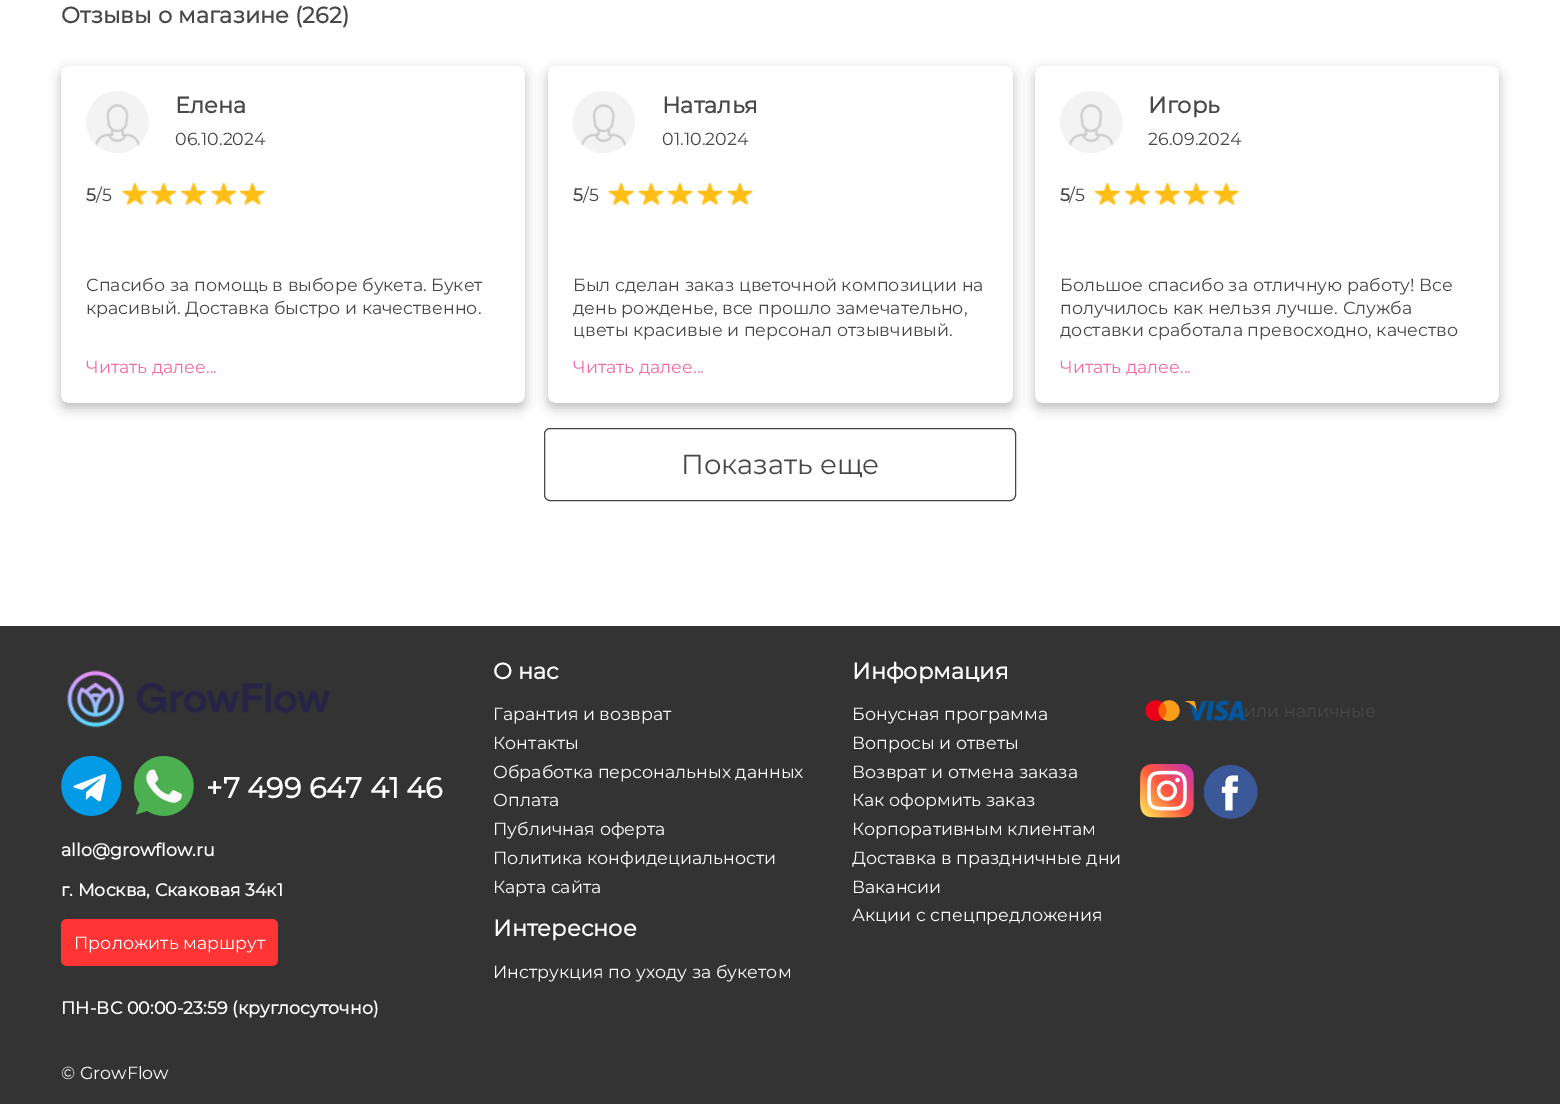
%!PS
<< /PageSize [1560 1104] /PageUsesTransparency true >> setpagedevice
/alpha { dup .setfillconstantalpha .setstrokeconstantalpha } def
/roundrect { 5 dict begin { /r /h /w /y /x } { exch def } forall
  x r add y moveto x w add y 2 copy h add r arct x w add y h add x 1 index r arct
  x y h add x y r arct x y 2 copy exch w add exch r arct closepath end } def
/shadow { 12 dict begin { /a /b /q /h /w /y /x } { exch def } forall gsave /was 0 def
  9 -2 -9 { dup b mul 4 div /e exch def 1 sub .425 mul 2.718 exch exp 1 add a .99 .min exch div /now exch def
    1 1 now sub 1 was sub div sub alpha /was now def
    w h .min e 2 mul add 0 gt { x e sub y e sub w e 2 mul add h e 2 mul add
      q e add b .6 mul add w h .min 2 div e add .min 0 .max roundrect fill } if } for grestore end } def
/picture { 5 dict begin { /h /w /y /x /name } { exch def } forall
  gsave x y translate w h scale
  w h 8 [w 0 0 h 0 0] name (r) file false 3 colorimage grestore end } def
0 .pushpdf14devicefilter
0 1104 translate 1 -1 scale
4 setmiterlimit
1 setgray
0 0 1560 1104 rectfill
/Montserrat-Bold [22.5 0 0 -22.5 0 0] selectfont
0.282 setgray
61 23 moveto (Отзывы о магазине \(262\)) show
gsave
newpath 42 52 moveto 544 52 lineto 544 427 lineto 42 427 lineto closepath 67 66 moveto 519 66 lineto 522.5 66 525 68.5 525 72 curveto 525 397 lineto 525 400.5 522.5 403 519 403 curveto 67 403 lineto 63.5 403 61 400.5 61 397 curveto 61 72 lineto 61 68.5 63.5 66 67 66 curveto closepath eoclip newpath
0 setgray
61 71 464 337 6 6 0.25 shadow
grestore
(img1.rgb) 86 91 63 62 picture
175 113 moveto (Елена) show
/Montserrat-Thin [17.5 0 0 -17.5 0 0] selectfont
175 145 moveto (06.10.2024) show
/Montserrat-Bold [17.5 0 0 -17.5 0 0] selectfont
86 201 moveto (5) show
/Montserrat-Thin [17.5 0 0 -17.5 0 0] selectfont
96 201 moveto (/5) show
(img2.rgb) 122 183 26 23 picture
(img3.rgb) 151 183 26 23 picture
(img3.rgb) 181 183 26 23 picture
(img3.rgb) 211 183 26 23 picture
(img4.rgb) 240 183 25 23 picture
86 291 moveto (Спасибо за помощь в выборе букета. Букет) show
86 314 moveto (красивый. Доставка быстро и качественно.) show
0.941 0.424 0.647 setrgbcolor
86 373 moveto (Читать далее...) show
gsave
newpath 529 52 moveto 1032 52 lineto 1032 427 lineto 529 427 lineto closepath 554 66 moveto 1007 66 lineto 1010.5 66 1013 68.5 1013 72 curveto 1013 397 lineto 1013 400.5 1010.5 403 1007 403 curveto 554 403 lineto 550.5 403 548 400.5 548 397 curveto 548 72 lineto 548 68.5 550.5 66 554 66 curveto closepath eoclip newpath
0 setgray
548 71 465 337 6 6 0.25 shadow
grestore
(img5.rgb) 572 91 63 62 picture
/Montserrat-Bold [22.5 0 0 -22.5 0 0] selectfont
0.282 setgray
662 113 moveto (Наталья) show
/Montserrat-Thin [17.5 0 0 -17.5 0 0] selectfont
662 145 moveto (01.10.2024) show
/Montserrat-Bold [17.5 0 0 -17.5 0 0] selectfont
573 201 moveto (5) show
/Montserrat-Thin [17.5 0 0 -17.5 0 0] selectfont
583 201 moveto (/5) show
(img6.rgb) 608 183 26 23 picture
(img6.rgb) 638 183 26 23 picture
(img2.rgb) 667 183 26 23 picture
(img2.rgb) 697 183 26 23 picture
(img2.rgb) 727 183 26 23 picture
573 291 moveto (Был сделан заказ цветочной композиции на) show
573 314 moveto (день рожденье, все прошло замечательно,) show
573 336 moveto (цветы красивые и персонал отзывчивый.) show
0.941 0.424 0.647 setrgbcolor
573 373 moveto (Читать далее...) show
gsave
newpath 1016 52 moveto 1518 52 lineto 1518 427 lineto 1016 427 lineto closepath 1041 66 moveto 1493 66 lineto 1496.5 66 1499 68.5 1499 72 curveto 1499 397 lineto 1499 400.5 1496.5 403 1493 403 curveto 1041 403 lineto 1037.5 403 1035 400.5 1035 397 curveto 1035 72 lineto 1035 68.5 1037.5 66 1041 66 curveto closepath eoclip newpath
0 setgray
1035 71 464 337 6 6 0.25 shadow
grestore
(img7.rgb) 1060 91 63 62 picture
/Montserrat-Bold [22.5 0 0 -22.5 0 0] selectfont
0.282 setgray
1148 113 moveto (Игорь) show
/Montserrat-Thin [17.5 0 0 -17.5 0 0] selectfont
1148 145 moveto (26.09.2024) show
/Montserrat-Bold [17.5 0 0 -17.5 0 0] selectfont
1060 201 moveto (5) show
/Montserrat-Thin [17.5 0 0 -17.5 0 0] selectfont
1069 201 moveto (/5) show
(img8.rgb) 1095 183 25 23 picture
(img9.rgb) 1125 183 25 23 picture
(img9.rgb) 1155 183 25 23 picture
(img6.rgb) 1183 183 26 23 picture
(img6.rgb) 1213 183 26 23 picture
1060 291 moveto (Большое спасибо за отличную работу! Все) show
1060 314 moveto (получилось как нельзя лучше. Служба) show
gsave
1060 274 414 69 rectclip
1060 336 moveto (доставки сработала превосходно, качество) show
grestore
0.941 0.424 0.647 setrgbcolor
1060 373 moveto (Читать далее...) show
0.282 setgray
544.5 428.5 471 72 5.5 roundrect stroke
/Montserrat-Thin [27.5 0 0 -27.5 0 0] selectfont
681 474 moveto (Показать еще) show
0.2 setgray
0 626 1560 478 rectfill
/Montserrat-Bold [22.5 0 0 -22.5 0 0] selectfont
1 setgray
493 679 moveto (О нас) show
/Montserrat-Thin [17.5 0 0 -17.5 0 0] selectfont
493 720 moveto (Гарантия и возврат) show
493 749 moveto (Контакты) show
493 778 moveto (Обработка персональных данных) show
493 806 moveto (Оплата) show
493 835 moveto (Публичная оферта) show
493 864 moveto (Политика конфидециальности) show
493 893 moveto (Карта сайта) show
/Montserrat-Bold [22.5 0 0 -22.5 0 0] selectfont
493 936 moveto (Интересное) show
/Montserrat-Thin [17.5 0 0 -17.5 0 0] selectfont
493 978 moveto (Инструкция по уходу за букетом) show
/Montserrat-Bold [22.5 0 0 -22.5 0 0] selectfont
852 679 moveto (Информация) show
/Montserrat-Thin [17.5 0 0 -17.5 0 0] selectfont
852 720 moveto (Бонусная программа) show
852 749 moveto (Вопросы и ответы) show
852 778 moveto (Возврат и отмена заказа) show
852 806 moveto (Как оформить заказ) show
852 835 moveto (Корпоративным клиентам) show
852 864 moveto (Доставка в праздничные дни) show
852 893 moveto (Вакансии) show
852 921 moveto (Акции с спецпредложения) show
(img10.rgb) 1145 700 35 21 picture
(img11.rgb) 1185 700 60 21 picture
0.282 setgray
1244 717 moveto (или наличные) show
(img12.rgb) 1140 764 54 54 picture
(img13.rgb) 1204 765 54 54 picture
(img14.rgb) 67 670 263 58 picture
(img15.rgb) 61 755 60 61 picture
(img16.rgb) 134 755 60 61 picture
/Montserrat-Bold [28.75 0 0 -28.75 0 0] selectfont
1 setgray
206 798 moveto (+7 499 647 41 46) show
/Montserrat-Bold [17.5 0 0 -17.5 0 0] selectfont
61 856 moveto (allo@growflow.ru) show
61 896 moveto (г. Москва, Скаковая 34к1) show
1 0.208 0.208 setrgbcolor
61 919 217 47 6 roundrect fill
/Montserrat-Thin [17.5 0 0 -17.5 0 0] selectfont
1 setgray
74 949 moveto (Проложить маршрут) show
/Montserrat-Bold [17.5 0 0 -17.5 0 0] selectfont
61 1014 moveto (ПН-ВС 00:00-23:59 \(круглосуточно\)) show
/Montserrat-Thin [17.5 0 0 -17.5 0 0] selectfont
61 1079 moveto (© GrowFlow) show
.poppdf14devicefilter showpage
